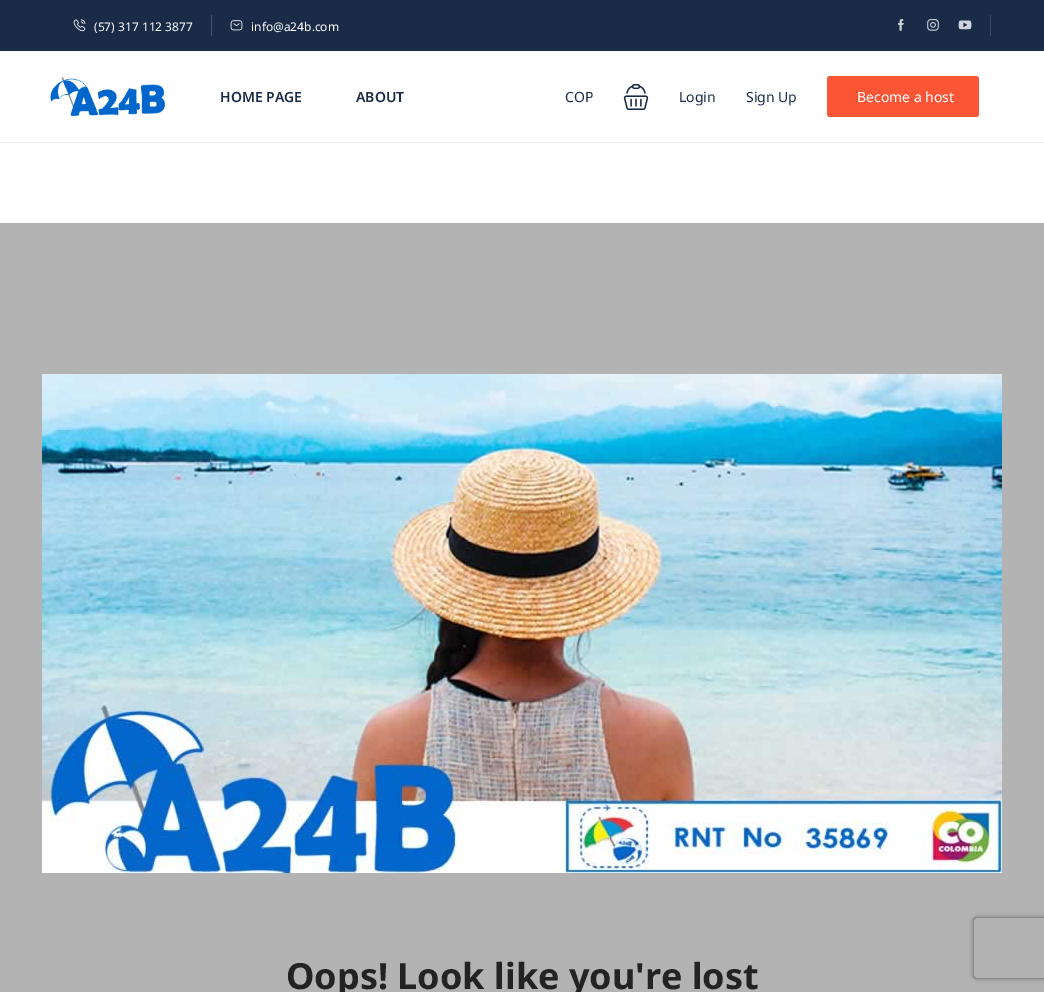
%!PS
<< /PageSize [1044 992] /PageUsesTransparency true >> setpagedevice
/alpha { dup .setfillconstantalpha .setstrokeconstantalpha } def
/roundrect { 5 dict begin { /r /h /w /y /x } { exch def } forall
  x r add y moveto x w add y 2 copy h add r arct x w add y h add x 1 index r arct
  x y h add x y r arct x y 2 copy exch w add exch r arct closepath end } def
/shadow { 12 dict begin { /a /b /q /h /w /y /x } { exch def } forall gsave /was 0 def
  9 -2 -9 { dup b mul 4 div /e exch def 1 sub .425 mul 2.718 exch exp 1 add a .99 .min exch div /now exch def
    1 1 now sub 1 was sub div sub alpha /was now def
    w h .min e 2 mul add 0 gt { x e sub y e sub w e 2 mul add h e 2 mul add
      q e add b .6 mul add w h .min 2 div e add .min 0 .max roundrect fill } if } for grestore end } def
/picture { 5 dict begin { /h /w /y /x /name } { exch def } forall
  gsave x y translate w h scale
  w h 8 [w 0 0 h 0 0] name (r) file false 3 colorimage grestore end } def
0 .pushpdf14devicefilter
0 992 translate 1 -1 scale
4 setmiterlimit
1 setgray
0 0 1044 992 rectfill
0.702 setgray
0 223 1044 769 rectfill
0.102 0.169 0.282 setrgbcolor
0 0 1044 51 rectfill
0.282 0.333 0.427 setrgbcolor
211 15 1 21 rectfill
(img1.rgb) 73 19 13 13 picture
/NotoSans-Regular [12 0 0 -12 0 0] selectfont
1 setgray
94 31 moveto (\(57\) 317 112 3877) show
(img2.rgb) 230 20 13 11 picture
251 31 moveto (info@a24b.com) show
0.216 0.286 0.412 setrgbcolor
990 15 1 21 rectfill
(img3.rgb) 898 19 6 12 picture
(img4.rgb) 927 19 12 12 picture
(img5.rgb) 958 20 14 10 picture
0.918 0.933 0.953 setrgbcolor
0 142 1044 1 rectfill
(img6.rgb) 50 77 115 39 picture
/NotoSans-SemiBold [14 0 0 -14 0 0] selectfont
0.102 0.169 0.282 setrgbcolor
220 102 moveto (HOME PAGE) show
356 102 moveto (ABOUT) show
/NotoSans-Regular [14 0 0 -14 0 0] selectfont
565 102 moveto (COP) show
(img7.rgb) 623 84 26 26 picture
679 102 moveto (Login) show
746 102 moveto (Sign Up) show
0.98 0.337 0.212 setrgbcolor
827 76 152 41 3 roundrect fill
1 setgray
857 102 moveto (Become a host) show
(img8.rgb) 42 374 960 499 picture
/NotoSans-Bold [36 0 0 -36 0 0] selectfont
0.137 setgray
286 989 moveto (Oops! Look like you're lost) show
gsave
newpath 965 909 moveto 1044 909 lineto 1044 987 lineto 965 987 lineto closepath 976 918 moveto 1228 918 lineto 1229 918 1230 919 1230 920 curveto 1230 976 lineto 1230 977 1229 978 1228 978 curveto 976 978 lineto 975 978 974 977 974 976 curveto 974 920 lineto 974 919 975 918 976 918 curveto closepath eoclip newpath
0.353 setgray
974 918 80 60 2 2.5 1 shadow
grestore
.poppdf14devicefilter showpage
